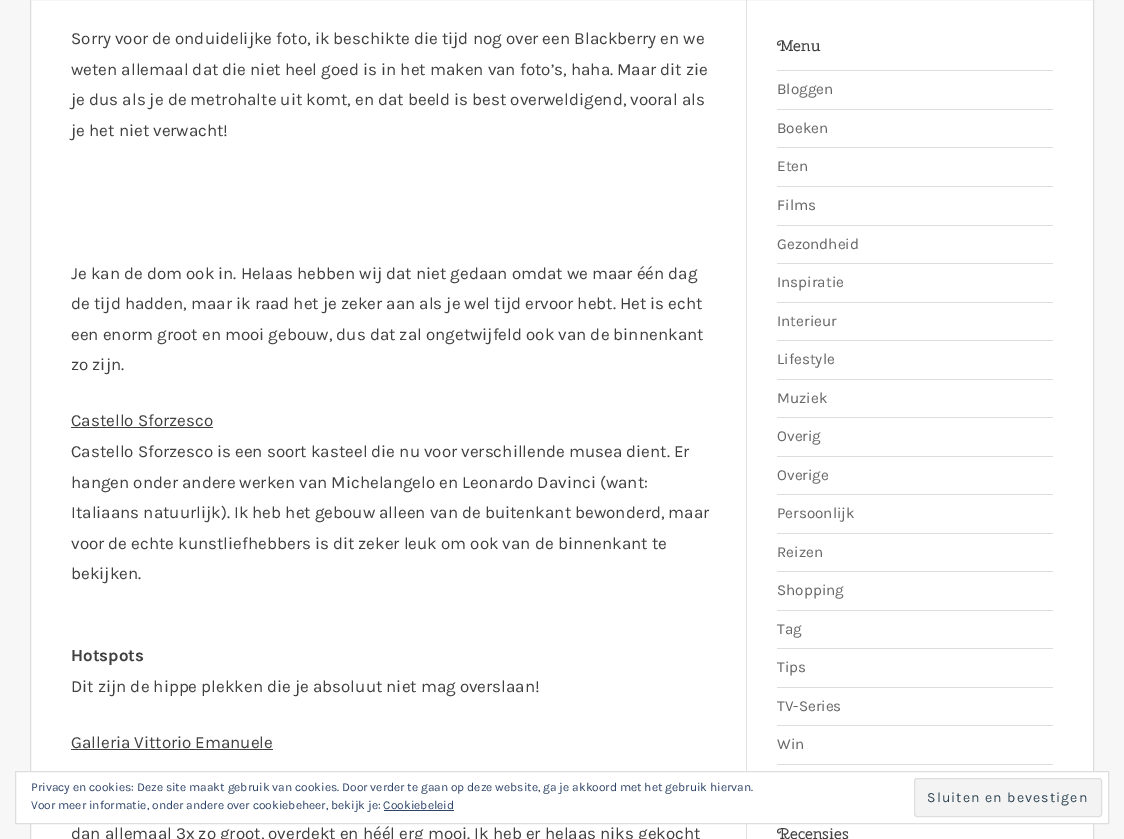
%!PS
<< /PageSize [1124 839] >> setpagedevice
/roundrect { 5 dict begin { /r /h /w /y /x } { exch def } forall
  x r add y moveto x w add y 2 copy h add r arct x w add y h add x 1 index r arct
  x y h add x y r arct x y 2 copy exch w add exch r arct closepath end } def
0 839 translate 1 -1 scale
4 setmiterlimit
0.969 setgray
0 0 1124 839 rectfill
1 setgray
newpath 30.5 -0.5 moveto 1093.5 -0.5 lineto 1093.5 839.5 lineto 30.5 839.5 lineto closepath gsave fill grestore
0.867 setgray
stroke
/Karla-Regular [17 0 0 -17 0 0] selectfont
0.251 setgray
71 44 moveto (Sorry voor de onduidelijke foto, ik beschikte die tijd nog over een Blackberry en we) show
71 75 moveto (weten allemaal dat die niet heel goed is in het maken van foto’s, haha. Maar dit zie) show
71 105 moveto (je dus als je de metrohalte uit komt, en dat beeld is best overweldigend, vooral als) show
71 136 moveto (je het niet verwacht!) show
71 279 moveto (Je kan de dom ook in. Helaas hebben wij dat niet gedaan omdat we maar één dag) show
71 309 moveto (de tijd hadden, maar ik raad het je zeker aan als je wel tijd ervoor hebt. Het is echt) show
71 340 moveto (een enorm groot en mooi gebouw, dus dat zal ongetwijfeld ook van de binnenkant) show
71 370 moveto (zo zijn.) show
71 426 moveto (Castello Sforzesco) show
71 427 142 1 rectfill
71 457 moveto (Castello Sforzesco is een soort kasteel die nu voor verschillende musea dient. Er) show
71 488 moveto (hangen onder andere werken van Michelangelo en Leonardo Davinci \(want:) show
71 518 moveto (Italiaans natuurlijk\). Ik heb het gebouw alleen van de buitenkant bewonderd, maar) show
71 549 moveto (voor de echte kunstliefhebbers is dit zeker leuk om ook van de binnenkant te) show
71 579 moveto (bekijken.) show
/Karla-Bold [17 0 0 -17 0 0] selectfont
71 661 moveto (Hotspots) show
/Karla-Regular [17 0 0 -17 0 0] selectfont
71 692 moveto (Dit zijn de hippe plekken die je absoluut niet mag overslaan!) show
71 748 moveto (Galleria Vittorio Emanuele) show
71 749 202 1 rectfill
71 839 moveto (dan allemaal 3x zo groot, overdekt en héél erg mooi. Ik heb er helaas niks gekocht) show
0.882 setgray
746 0 1 839 rectfill
/CherrySwash-Regular [15.5 0 0 -15.5 0 0] selectfont
0.251 setgray
777 51 moveto (Menu) show
0.867 setgray
777 764 276 1 rectfill
777 70 276 1 rectfill
/Karla-Regular [15.25 0 0 -15.25 0 0] selectfont
0.4 setgray
777 94 moveto (Bloggen) show
0.867 setgray
777 109 276 1 rectfill
0.4 setgray
777 133 moveto (Boeken) show
0.867 setgray
777 147 276 1 rectfill
0.4 setgray
777 171 moveto (Eten) show
0.867 setgray
777 186 276 1 rectfill
0.4 setgray
777 210 moveto (Films) show
0.867 setgray
777 225 276 1 rectfill
0.4 setgray
777 249 moveto (Gezondheid) show
0.867 setgray
777 263 276 1 rectfill
0.4 setgray
777 287 moveto (Inspiratie) show
0.867 setgray
777 302 276 1 rectfill
0.4 setgray
777 326 moveto (Interieur) show
0.867 setgray
777 340 276 1 rectfill
0.4 setgray
777 364 moveto (Lifestyle) show
0.867 setgray
777 379 276 1 rectfill
0.4 setgray
777 403 moveto (Muziek) show
0.867 setgray
777 417 276 1 rectfill
0.4 setgray
777 441 moveto (Overig) show
0.867 setgray
777 456 276 1 rectfill
0.4 setgray
777 480 moveto (Overige) show
0.867 setgray
777 494 276 1 rectfill
0.4 setgray
777 518 moveto (Persoonlijk) show
0.867 setgray
777 533 276 1 rectfill
0.4 setgray
777 557 moveto (Reizen) show
0.867 setgray
777 571 276 1 rectfill
0.4 setgray
777 595 moveto (Shopping) show
0.867 setgray
777 610 276 1 rectfill
0.4 setgray
777 634 moveto (Tag) show
0.867 setgray
777 648 276 1 rectfill
0.4 setgray
777 672 moveto (Tips) show
0.867 setgray
777 687 276 1 rectfill
0.4 setgray
777 711 moveto (TV-Series) show
0.867 setgray
777 725 276 1 rectfill
0.4 setgray
777 749 moveto (Win) show
gsave
777 825 276 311 rectclip
/CherrySwash-Regular [15.5 0 0 -15.5 0 0] selectfont
0.251 setgray
777 839 moveto (Recensies) show
grestore
1 setgray
newpath 15.5 771.5 moveto 1108.5 771.5 lineto 1108.5 823.5 lineto 15.5 823.5 lineto closepath gsave fill grestore
0.871 setgray
stroke
/Karla-Regular [12 0 0 -12 0 0] selectfont
0.18 0.267 0.404 setrgbcolor
31 791 moveto (Privacy en cookies: Deze site maakt gebruik van cookies. Door verder te gaan op deze website, ga je akkoord met het gebruik hiervan.) show
31 809 moveto (Voor meer informatie, onder andere over cookiebeheer, bekijk je: Cookiebeleid) show
0.953 setgray
914.5 778.5 187 38 2.5 roundrect gsave fill grestore
0.871 setgray
stroke
/Karla-Regular [14 0 0 -14 0 0] selectfont
0.18 0.267 0.325 setrgbcolor
927 802 moveto 1.1 0 (Sluiten en bevestigen) ashow
0.18 0.267 0.404 setrgbcolor
384 810 70 1 rectfill
showpage
